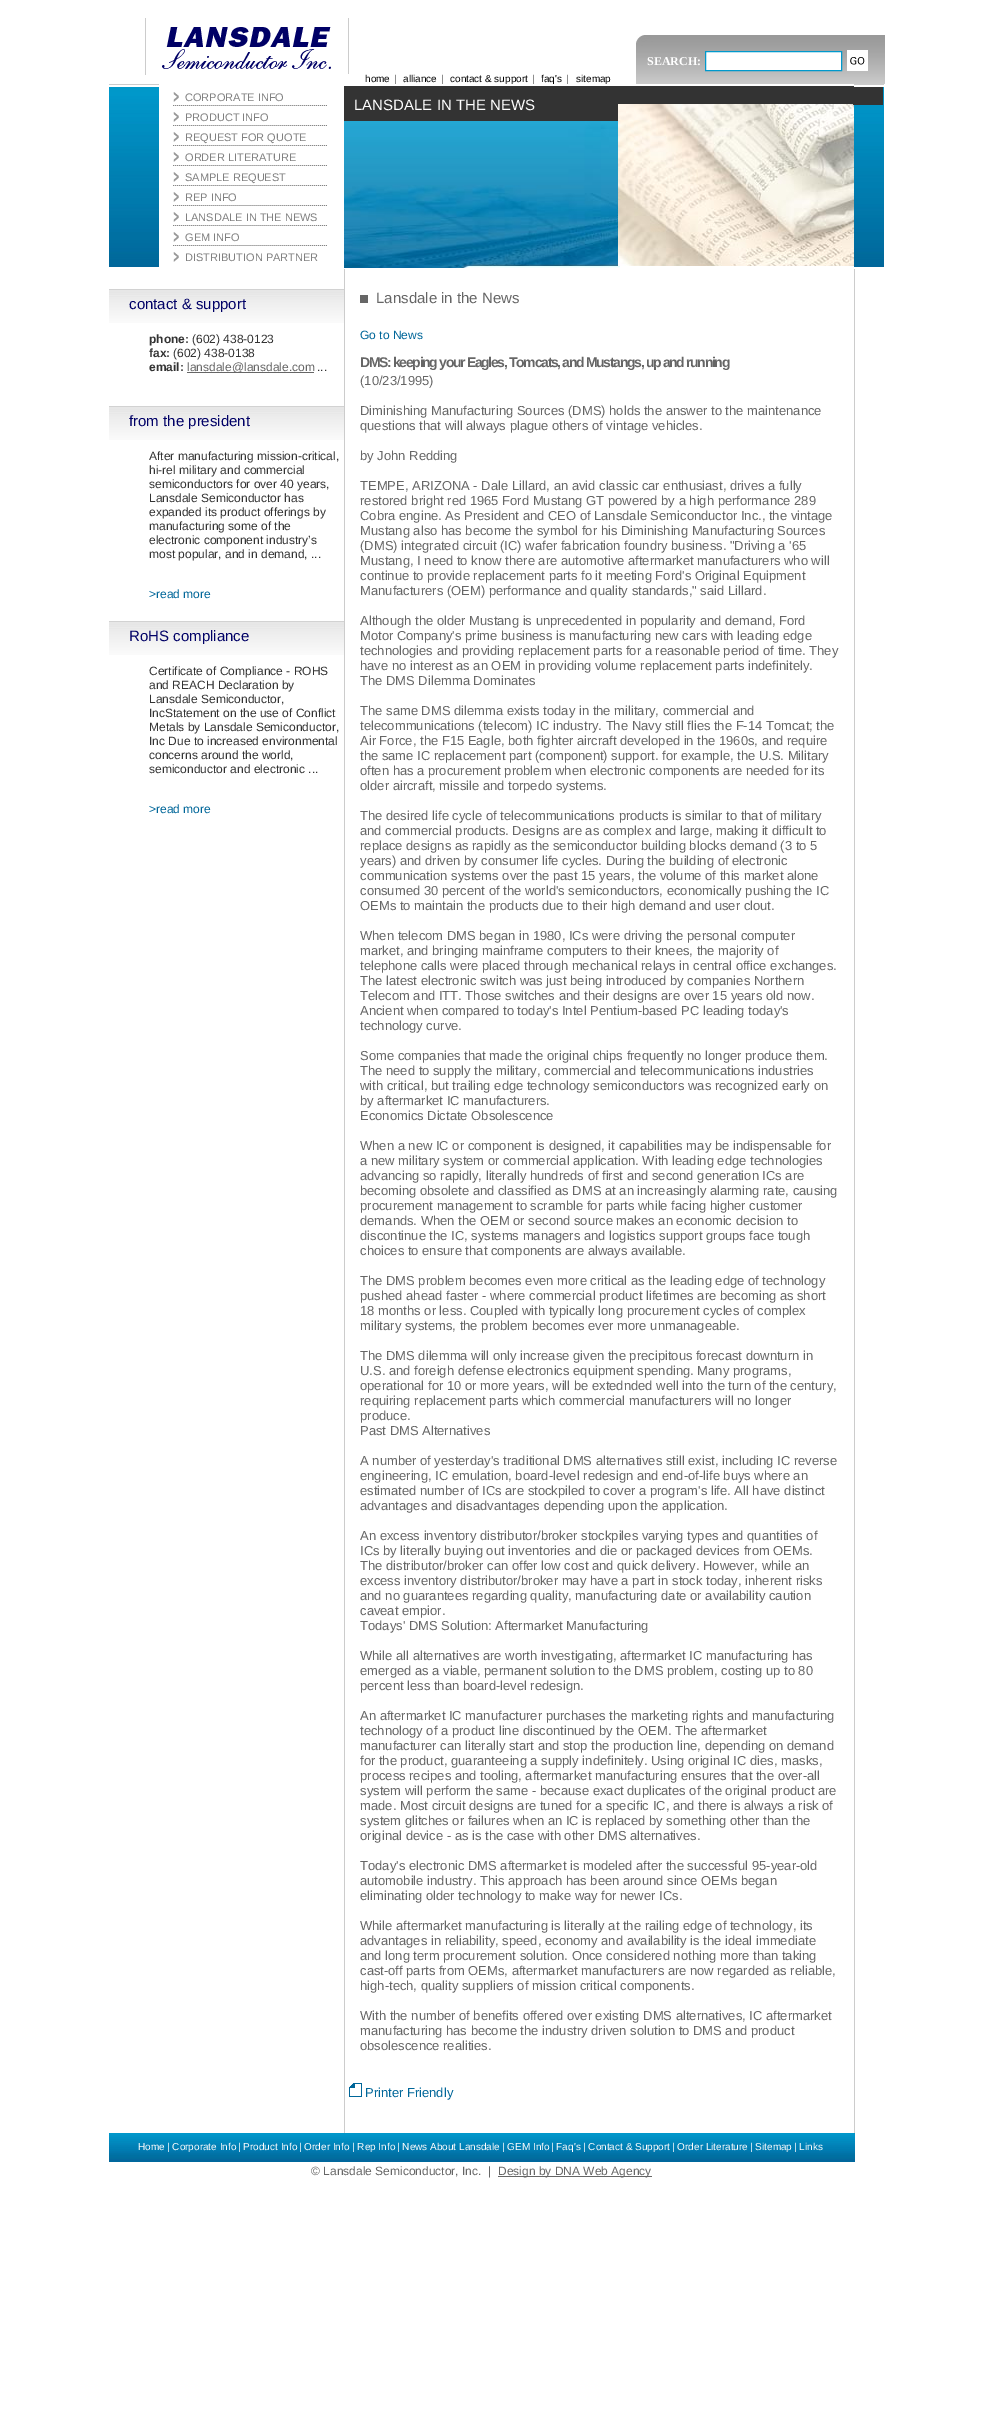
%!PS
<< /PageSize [993 2412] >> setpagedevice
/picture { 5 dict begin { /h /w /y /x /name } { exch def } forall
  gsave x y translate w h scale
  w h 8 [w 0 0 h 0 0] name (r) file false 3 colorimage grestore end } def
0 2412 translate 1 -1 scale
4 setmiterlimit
1 setgray
0 0 993 2412 rectfill
(img1.rgb) 145 18 204 57 picture
(img2.rgb) 636 35 249 49 picture
/LiberationSerif-Bold [12 0 0 -12 0 0] selectfont
647 65 moveto (SEARCH:) show
newpath 705.5 51.5 moveto 841.5 51.5 lineto 841.5 70.5 lineto 705.5 70.5 lineto closepath gsave fill grestore
0 0.6 0.8 setrgbcolor
stroke
(img3.rgb) 847 50 21 21 picture
/LiberationSans-Regular [10 0 0 -10 0 0] selectfont
0 setgray
365 82 moveto (home) show
0.4 setgray
394 82 moveto (|) show
0 setgray
403 82 moveto (alliance) show
0.4 setgray
441 82 moveto (|) show
0 setgray
450 82 moveto (contact & support) show
0.4 setgray
532 82 moveto (|) show
0 setgray
541 82 moveto (faq's) show
0.4 setgray
566 82 moveto (|) show
0 setgray
576 82 moveto (sitemap) show
(img4.rgb) 109 87 50 180 picture
0.8 setgray
109 84 50 1 rectfill
(img5.rgb) 173 105 154 1 picture
(img6.rgb) 173 92 6 10 picture
/LiberationSans-Regular [11 0 0 -11 0 0] selectfont
0.502 setgray
185 101 moveto (CORPORATE INFO) show
(img5.rgb) 173 125 154 1 picture
(img6.rgb) 173 112 6 10 picture
185 121 moveto (PRODUCT INFO) show
(img5.rgb) 173 145 154 1 picture
(img6.rgb) 173 132 6 10 picture
185 141 moveto (REQUEST FOR QUOTE) show
(img5.rgb) 173 165 154 1 picture
(img6.rgb) 173 152 6 10 picture
185 161 moveto (ORDER LITERATURE) show
(img5.rgb) 173 185 154 1 picture
(img6.rgb) 173 172 6 10 picture
185 181 moveto (SAMPLE REQUEST) show
(img5.rgb) 173 205 154 1 picture
(img6.rgb) 173 192 6 10 picture
185 201 moveto (REP INFO) show
(img5.rgb) 173 225 154 1 picture
(img6.rgb) 173 212 6 10 picture
185 221 moveto (LANSDALE IN THE NEWS) show
(img5.rgb) 173 245 154 1 picture
(img6.rgb) 173 232 6 10 picture
185 241 moveto (GEM INFO) show
(img6.rgb) 173 252 6 10 picture
185 261 moveto (DISTRIBUTION PARTNER) show
1 setgray
394 84 213 1 rectfill
(img7.rgb) 344 121 276 147 picture
0.2 setgray
344 86 510 35 rectfill
/LiberationSans-Regular [15 0 0 -15 0 0] selectfont
1 setgray
354 110 moveto (LANSDALE IN THE NEWS) show
(img8.rgb) 618 104 236 162 picture
(img9.rgb) 854 87 30 180 picture
0.8 setgray
854 84 30 1 rectfill
0.2 setgray
853 87 30 18 rectfill
(img10.rgb) 109 289 235 34 picture
0 0 0.4 setrgbcolor
129 309 moveto (contact & support) show
/LiberationSans-Bold [12 0 0 -12 0 0] selectfont
0.2 setgray
149 343 moveto (phone:) show
/LiberationSans-Regular [12 0 0 -12 0 0] selectfont
192 343 moveto (\(602\) 438-0123) show
/LiberationSans-Bold [12 0 0 -12 0 0] selectfont
149 357 moveto (fax:) show
/LiberationSans-Regular [12 0 0 -12 0 0] selectfont
173 357 moveto (\(602\) 438-0138) show
/LiberationSans-Bold [12 0 0 -12 0 0] selectfont
149 371 moveto (email:) show
0.4 setgray
187 372 127 1 rectfill
/LiberationSans-Regular [12 0 0 -12 0 0] selectfont
187 371 moveto (lansdale@lansdale.com) show
0.2 setgray
317 371 moveto (...) show
(img10.rgb) 109 406 235 34 picture
/LiberationSans-Regular [15 0 0 -15 0 0] selectfont
0 0 0.4 setrgbcolor
129 426 moveto (from the president) show
/LiberationSans-Regular [12 0 0 -12 0 0] selectfont
0.2 setgray
149 460 moveto (After manufacturing mission-critical,) show
149 474 moveto (hi-rel military and commercial) show
149 488 moveto (semiconductors for over 40 years,) show
149 502 moveto (Lansdale Semiconductor has) show
149 516 moveto (expanded its product offerings by) show
149 530 moveto (manufacturing some of the) show
149 544 moveto (electronic component industry’s) show
149 558 moveto (most popular, and in demand, ...) show
0 0.4 0.6 setrgbcolor
149 598 moveto (>read more) show
(img10.rgb) 109 621 235 34 picture
/LiberationSans-Regular [15 0 0 -15 0 0] selectfont
0 0 0.4 setrgbcolor
129 641 moveto (RoHS compliance) show
/LiberationSans-Regular [12 0 0 -12 0 0] selectfont
0.2 setgray
149 675 moveto (Certificate of Compliance - ROHS) show
149 689 moveto (and REACH Declaration by) show
149 703 moveto (Lansdale Semiconductor,) show
149 717 moveto (IncStatement on the use of Conflict) show
149 731 moveto (Metals by Lansdale Semiconductor,) show
149 745 moveto (Inc Due to increased environmental) show
149 759 moveto (concerns around the world,) show
149 773 moveto (semiconductor and electronic ...) show
0 0.4 0.6 setrgbcolor
149 813 moveto (>read more) show
0.8 setgray
854 269 1 1864 rectfill
344 269 1 1864 rectfill
0.4 setgray
360 295 8 8 rectfill
/LiberationSans-Regular [15 0 0 -15 0 0] selectfont
376 303 moveto (Lansdale in the News) show
/LiberationSans-Regular [12 0 0 -12 0 0] selectfont
0 0.4 0.6 setrgbcolor
360 339 moveto (Go to News) show
/LiberationSans-Bold [14 0 0 -14 0 0] selectfont
0.4 setgray
360 367 moveto -1.33 0 (DMS: keeping your Eagles, Tomcats, and Mustangs, up and running) ashow
/LiberationSans-Regular [13 0 0 -13 0 0] selectfont
360 385 moveto (\(10/23/1995\)) show
360 415 moveto (Diminishing Manufacturing Sources \(DMS\) holds the answer to the maintenance) show
360 430 moveto (questions that will always plague others of vintage vehicles.) show
360 460 moveto (by John Redding) show
360 490 moveto (TEMPE, ARIZONA - Dale Lillard, an avid classic car enthusiast, drives a fully) show
360 505 moveto (restored bright red 1965 Ford Mustang GT powered by a high performance 289) show
360 520 moveto (Cobra engine. As President and CEO of Lansdale Semiconductor Inc., the vintage) show
360 535 moveto (Mustang also has become the symbol for his Diminishing Manufacturing Sources) show
360 550 moveto (\(DMS\) integrated circuit \(IC\) wafer fabrication foundry business. "Driving a '65) show
360 565 moveto (Mustang, I need to know there are automotive aftermarket manufacturers who will) show
360 580 moveto (continue to provide replacement parts fo it meeting Ford's Original Equipment) show
360 595 moveto (Manufacturers \(OEM\) performance and quality standards," said Lillard.) show
360 625 moveto (Although the older Mustang is unprecedented in popularity and demand, Ford) show
360 640 moveto (Motor Company's prime business is manufacturing new cars with leading edge) show
360 655 moveto (technologies and providing replacement parts for a reasonable period of time. They) show
360 670 moveto (have no interest as an OEM in providing volume replacement parts indefinitely.) show
360 685 moveto (The DMS Dilemma Dominates) show
360 715 moveto (The same DMS dilemma exists today in the military, commercial and) show
360 730 moveto (telecommunications \(telecom\) IC industry. The Navy still flies the F-14 Tomcat; the) show
360 745 moveto (Air Force, the F15 Eagle, both fighter aircraft developed in the 1960s, and require) show
360 760 moveto (the same IC replacement part \(component\) support. for example, the U.S. Military) show
360 775 moveto (often has a procurement problem when electronic components are needed for its) show
360 790 moveto (older aircraft, missile and torpedo systems.) show
360 820 moveto (The desired life cycle of telecommunications products is similar to that of military) show
360 835 moveto (and commercial products. Designs are as complex and large, making it difficult to) show
360 850 moveto (replace designs as rapidly as the semiconductor building blocks demand \(3 to 5) show
360 865 moveto (years\) and driven by consumer life cycles. During the building of electronic) show
360 880 moveto (communication systems over the past 15 years, the volume of this market alone) show
360 895 moveto (consumed 30 percent of the world's semiconductors, economically pushing the IC) show
360 910 moveto (OEMs to maintain the products due to their high demand and user clout.) show
360 940 moveto (When telecom DMS began in 1980, ICs were driving the personal computer) show
360 955 moveto (market, and bringing mainframe computers to their knees, the majority of) show
360 970 moveto (telephone calls were placed through mechanical relays in central office exchanges.) show
360 985 moveto (The latest electronic switch was just being introduced by companies Northern) show
360 1000 moveto (Telecom and ITT. Those switches and their designs are over 15 years old now.) show
360 1015 moveto (Ancient when compared to today's Intel Pentium-based PC leading today's) show
360 1030 moveto (technology curve.) show
360 1060 moveto (Some companies that made the original chips frequently no longer produce them.) show
360 1075 moveto (The need to supply the military, commercial and telecommunications industries) show
360 1090 moveto (with critical, but trailing edge technology semiconductors was recognized early on) show
360 1105 moveto (by aftermarket IC manufacturers.) show
360 1120 moveto (Economics Dictate Obsolescence) show
360 1150 moveto (When a new IC or component is designed, it capabilities may be indispensable for) show
360 1165 moveto (a new military system or commercial application. With leading edge technologies) show
360 1180 moveto (advancing so rapidly, literally hundreds of first and second generation ICs are) show
360 1195 moveto (becoming obsolete and classified as DMS at an increasingly alarming rate, causing) show
360 1210 moveto (procurement management to scramble for parts while facing higher customer) show
360 1225 moveto (demands. When the OEM or second source makes an economic decision to) show
360 1240 moveto (discontinue the IC, systems managers and logistics support groups face tough) show
360 1255 moveto (choices to ensure that components are always available.) show
360 1285 moveto (The DMS problem becomes even more critical as the leading edge of technology) show
360 1300 moveto (pushed ahead faster - where commercial product lifetimes are becoming as short) show
360 1315 moveto (18 months or less. Coupled with typically long procurement cycles of complex) show
360 1330 moveto (military systems, the problem becomes ever more unmanageable.) show
360 1360 moveto (The DMS dilemma will only increase given the precipitous forecast downturn in) show
360 1375 moveto (U.S. and foreigh defense electronics equipment spending. Many programs,) show
360 1390 moveto (operational for 10 or more years, will be extednded well into the turn of the century,) show
360 1405 moveto (requiring replacement parts which commercial manufacturers will no longer) show
360 1420 moveto (produce.) show
360 1435 moveto (Past DMS Alternatives) show
360 1465 moveto (A number of yesterday's traditional DMS alternatives still exist, including IC reverse) show
360 1480 moveto (engineering, IC emulation, board-level redesign and end-of-life buys where an) show
360 1495 moveto (estimated number of ICs are stockpiled to cover a program's life. All have distinct) show
360 1510 moveto (advantages and disadvantages depending upon the application.) show
360 1540 moveto (An excess inventory distributor/broker stockpiles varying types and quantities of) show
360 1555 moveto (ICs by literally buying out inventories and die or packaged devices from OEMs.) show
360 1570 moveto (The distributor/broker can offer low cost and quick delivery. However, while an) show
360 1585 moveto (excess inventory distributor/broker may have a part in stock today, inherent risks) show
360 1600 moveto (and no guarantees regarding quality, manufacturing date or availability caution) show
360 1615 moveto (caveat empior.) show
360 1630 moveto (Todays' DMS Solution: Aftermarket Manufacturing) show
360 1660 moveto (While all alternatives are worth investigating, aftermarket IC manufacturing has) show
360 1675 moveto (emerged as a viable, permanent solution to the DMS problem, costing up to 80) show
360 1690 moveto (percent less than board-level redesign.) show
360 1720 moveto (An aftermarket IC manufacturer purchases the marketing rights and manufacturing) show
360 1735 moveto (technology of a product line discontinued by the OEM. The aftermarket) show
360 1750 moveto (manufacturer can literally start and stop the production line, depending on demand) show
360 1765 moveto (for the product, guaranteeing a supply indefinitely. Using original IC dies, masks,) show
360 1780 moveto (process recipes and tooling, aftermarket manufacturing ensures that the over-all) show
360 1795 moveto (system will perform the same - because exact duplicates of the original product are) show
360 1810 moveto (made. Most circuit designs are tuned for a specific IC, and there is always a risk of) show
360 1825 moveto (system glitches or failures when an IC is replaced by something other than the) show
360 1840 moveto (original device - as is the case with other DMS alternatives.) show
360 1870 moveto (Today's electronic DMS aftermarket is modeled after the successful 95-year-old) show
360 1885 moveto (automobile industry. This approach has been around since OEMs began) show
360 1900 moveto (eliminating older technology to make way for newer ICs.) show
360 1930 moveto (While aftermarket manufacturing is literally at the railing edge of technology, its) show
360 1945 moveto (advantages in reliability, speed, economy and availability is the ideal immediate) show
360 1960 moveto (and long term procurement solution. Once considered nothing more than taking) show
360 1975 moveto (cast-off parts from OEMs, aftermarket manufacturers are now regarded as reliable,) show
360 1990 moveto (high-tech, quality suppliers of mission critical components.) show
360 2020 moveto (With the number of benefits offered over existing DMS alternatives, IC aftermarket) show
360 2035 moveto (manufacturing has become the industry driven solution to DMS and product) show
360 2050 moveto (obsolescence realities.) show
(img11.rgb) 349 2083 13 14 picture
0 0.4 0.6 setrgbcolor
365 2097 moveto (Printer Friendly) show
(img12.rgb) 109 2133 746 29 picture
/LiberationSans-Regular [10 0 0 -10 0 0] selectfont
1 setgray
138 2150 moveto (Home) show
167 2150 moveto (| Corporate Info) show
238 2150 moveto (| Product Info) show
299 2150 moveto (| Order Info) show
352 2150 moveto (| Rep Info) show
397 2150 moveto (| News About Lansdale) show
502 2150 moveto (| GEM Info) show
551 2150 moveto (| Faq's) show
583 2150 moveto (| Contact & Support) show
672 2150 moveto (| Order Literature) show
750 2150 moveto (| Sitemap) show
794 2150 moveto (| Links) show
/LiberationSans-Regular [12 0 0 -12 0 0] selectfont
0.4 setgray
311 2175 moveto (© Lansdale Semiconductor, Inc.  |) show
498 2176 154 1 rectfill
498 2175 moveto (Design by DNA Web Agency) show
showpage
